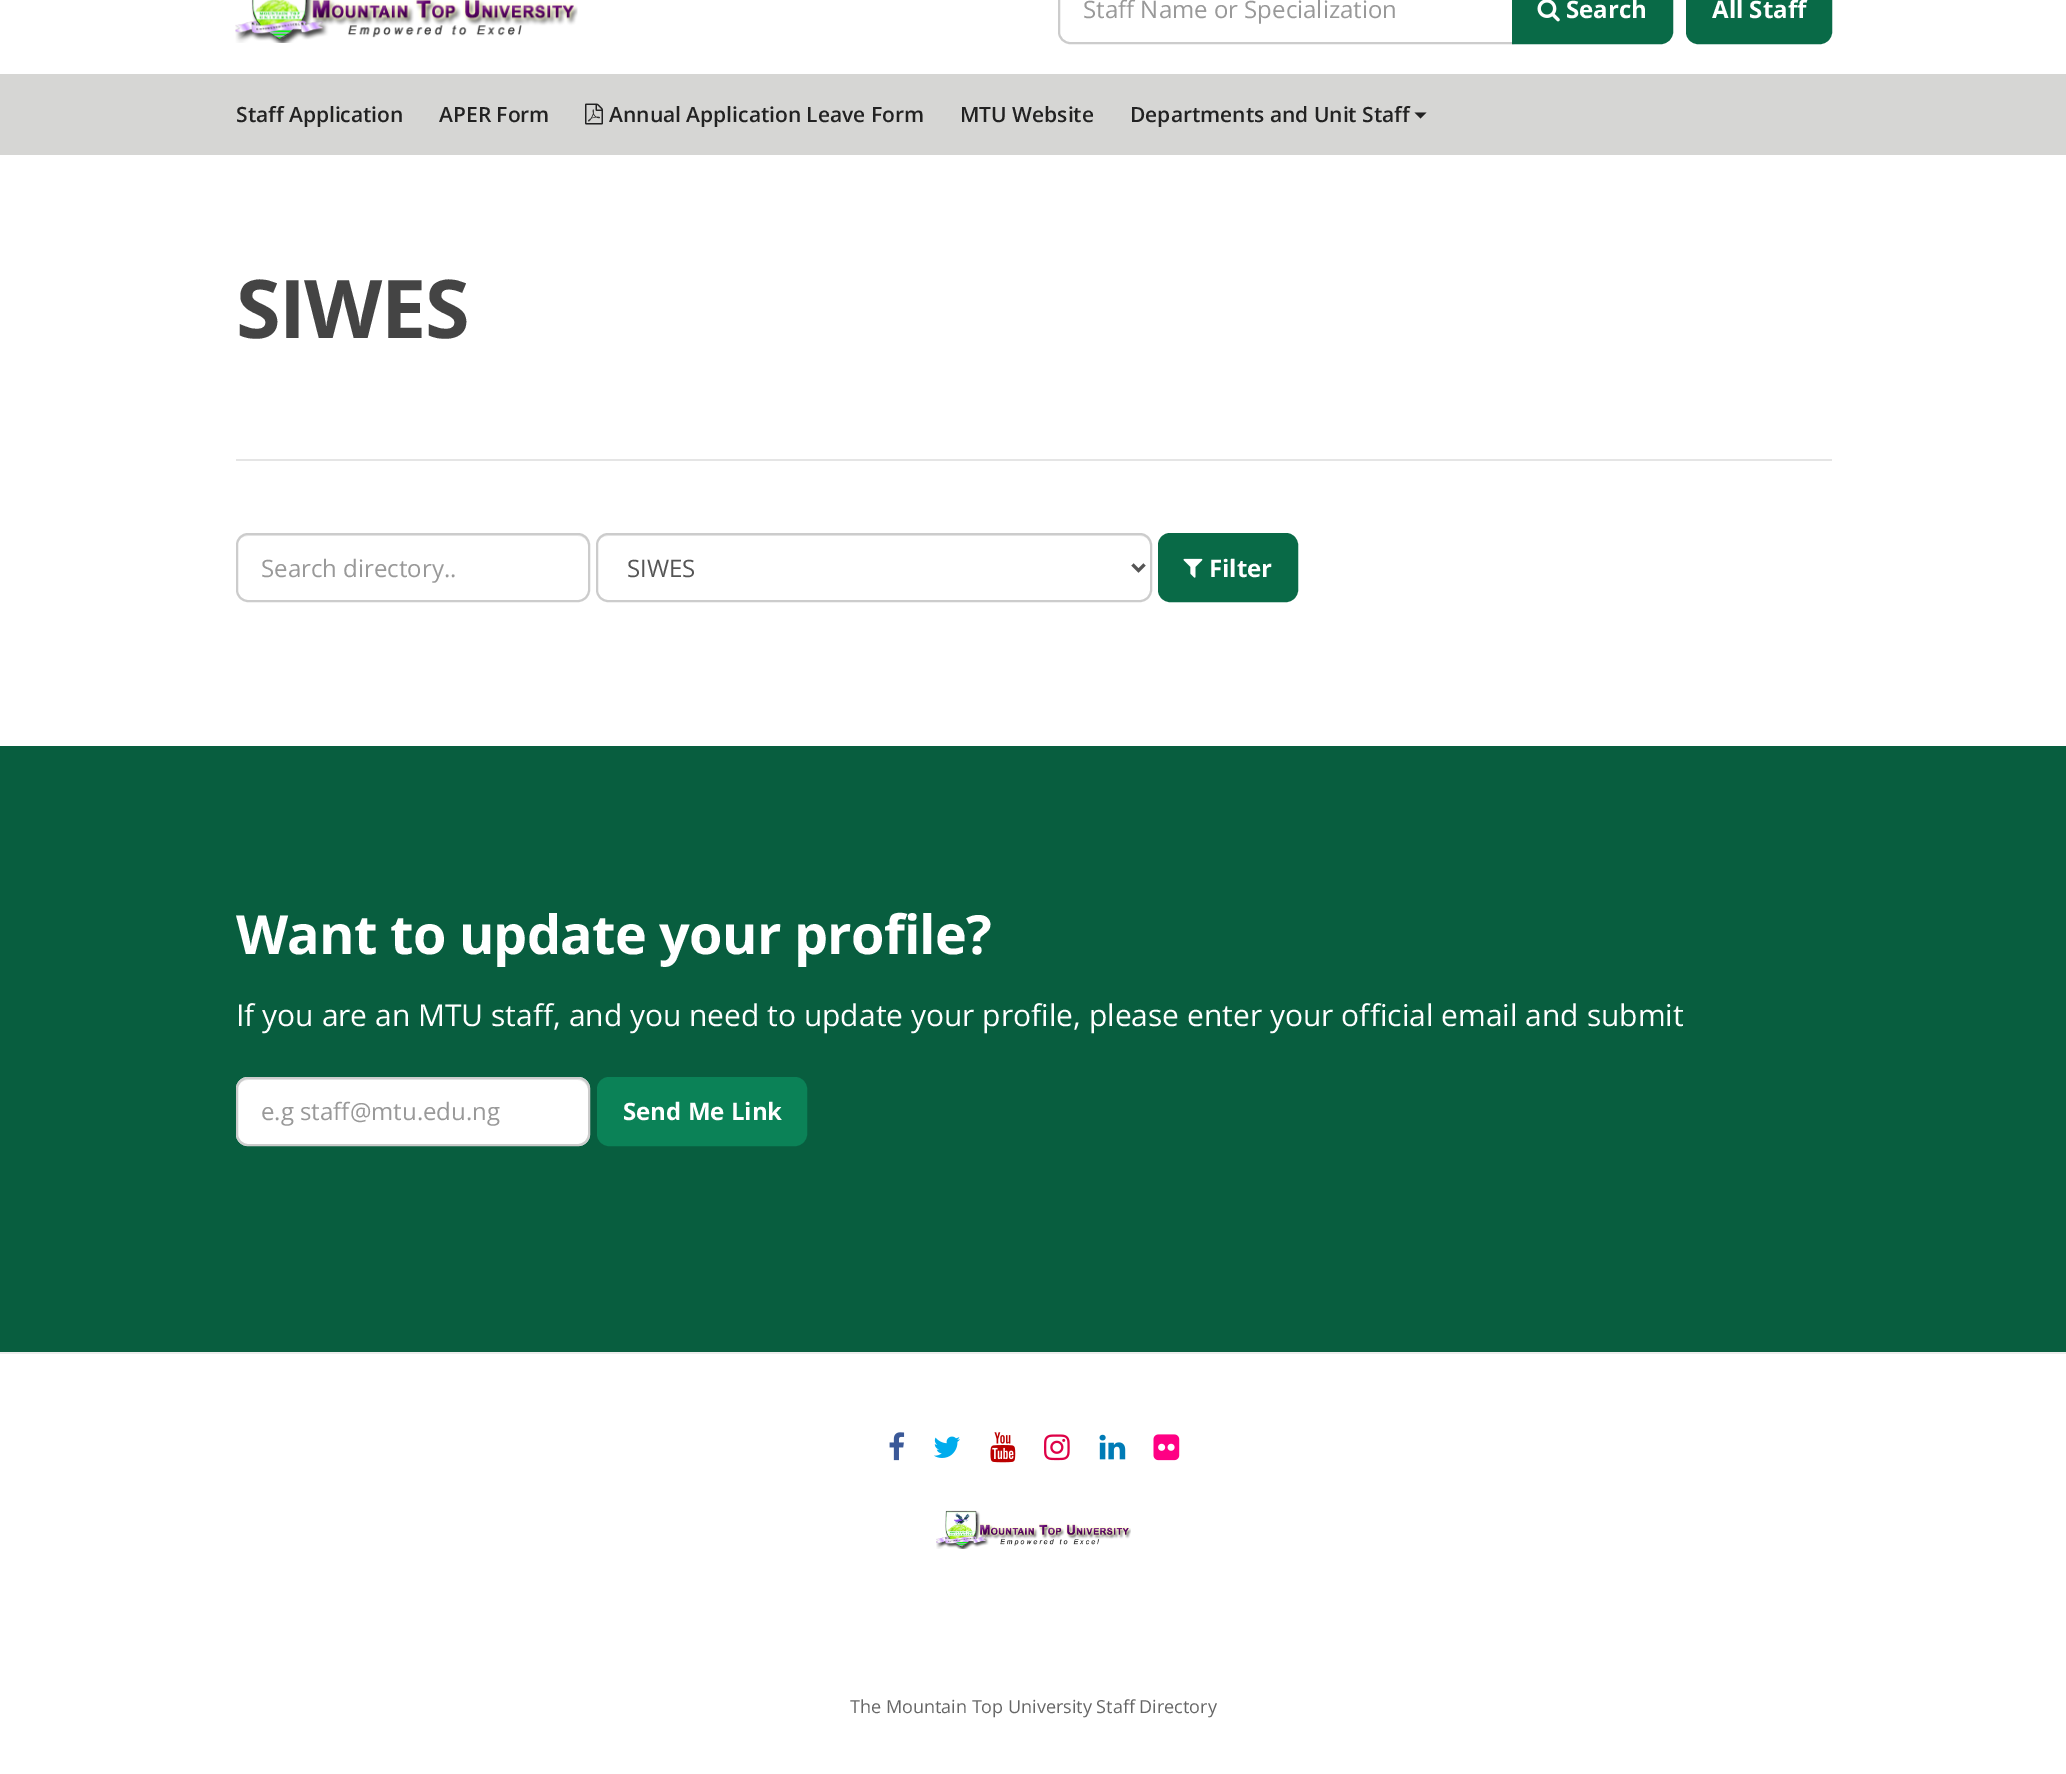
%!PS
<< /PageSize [2066 1774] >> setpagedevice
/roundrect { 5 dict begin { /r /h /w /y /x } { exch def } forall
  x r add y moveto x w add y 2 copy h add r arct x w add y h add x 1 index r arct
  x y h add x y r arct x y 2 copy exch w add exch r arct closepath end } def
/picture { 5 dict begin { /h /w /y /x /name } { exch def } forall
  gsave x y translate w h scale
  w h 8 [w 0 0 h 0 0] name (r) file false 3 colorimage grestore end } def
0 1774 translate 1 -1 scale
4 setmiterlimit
1 setgray
0 0 2066 1774 rectfill
(img1.rgb) 235 0 343 43 picture
0.8 setgray
2 setlinewidth
newpath 1070 -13 moveto 1513 -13 lineto 1513 43 lineto 1070 43 lineto 1064 43 1059 38 1059 32 curveto 1059 -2 lineto 1059 -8 1064 -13 1070 -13 curveto closepath stroke
/OpenSans-Regular [24 0 0 -24 0 0] selectfont
0.6 setgray
1083 18 moveto (Staff Name or Specialization) show
0.035 0.416 0.278 setrgbcolor
newpath 1513 -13 moveto 1661 -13 lineto 1667 -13 1672 -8 1672 -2 curveto 1672 32 lineto 1672 38 1667 43 1661 43 curveto 1513 43 lineto closepath gsave fill grestore
stroke
(img2.rgb) 1537 0 23 22 picture
/OpenSans-Bold [24 0 0 -24 0 0] selectfont
1 setgray
1566 18 moveto (Search) show
0.035 0.416 0.278 setrgbcolor
1687 -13 144 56 11 roundrect gsave fill grestore
stroke
1 setgray
1712 18 moveto (All Staff) show
0.839 0.839 0.831 setrgbcolor
0 74 2066 81 rectfill
/OpenSans-SemiBold [21 0 0 -21 0 0] selectfont
0.133 setgray
236 122 moveto (Staff Application) show
439 122 moveto (APER Form) show
(img3.rgb) 585 103 18 22 picture
609 122 moveto (Annual Application Leave Form) show
960 122 moveto (MTU Website) show
1130 122 moveto (Departments and Unit Staff) show
newpath 1414.5 112.5 moveto 1426.5 112.5 lineto 1420.5 118.5 lineto closepath fill
/OpenSans-Bold [81 0 0 -81 0 0] selectfont
0.267 setgray
236 338 moveto -1.5 0 (SIWES) ashow
0.898 setgray
236 459 1596 2 rectfill
0.925 setgray
newpath 248 536 moveto 578 536 lineto 583 536 588 540 588 546 curveto 588 545 lineto 588 539 583 534 577 534 curveto 248 534 lineto 242 534 237 539 237 545 curveto 237 546 lineto 237 540 242 536 248 536 curveto closepath fill
0.8 setgray
237 534 352 67 11 roundrect stroke
/OpenSans-Regular [24 0 0 -24 0 0] selectfont
0.6 setgray
261 577 moveto (Search directory..) show
0.925 setgray
newpath 608 536 moveto 1140 536 lineto 1146 536 1150 540 1150 546 curveto 1150 591 lineto 1150 595 lineto 1150 593 1151 591 1151 589 curveto 1151 545 lineto 1151 539 1146 534 1140 534 curveto 608 534 lineto 602 534 597 539 597 545 curveto 597 546 lineto 597 540 602 536 608 536 curveto closepath fill
0.8 setgray
597 534 554 67 11 roundrect stroke
0.333 setgray
3 setlinewidth
newpath 1132.5 564.5 moveto 1138.5 570.5 lineto 1144.5 564.5 lineto stroke
627 577 moveto (SIWES) show
0.035 0.416 0.278 setrgbcolor
1159 534 138 67 11 roundrect gsave fill grestore
2 setlinewidth
stroke
(img4.rgb) 1183 558 20 20 picture
/OpenSans-Bold [24 0 0 -24 0 0] selectfont
1 setgray
1209 577 moveto (Filter) show
0.031 0.369 0.247 setrgbcolor
0 746 2066 606 rectfill
/OpenSans-Bold [54 0 0 -54 0 0] selectfont
1 setgray
236 954 moveto -0.75 0 (Want to update your profile?) ashow
/OpenSans-Regular [30 0 0 -30 0 0] selectfont
236 1026 moveto (If you are an MTU staff, and you need to update your profile, please enter your official email and submit) show
236 1077 354 69 12 roundrect fill
0.925 setgray
newpath 248 1080 moveto 578 1080 lineto 583 1080 588 1085 588 1090 curveto 588 1084 583 1079 577 1079 curveto 248 1079 lineto 242 1079 237 1084 237 1090 curveto 237 1085 242 1080 248 1080 curveto closepath fill
0.8 setgray
237 1078 352 67 11 roundrect stroke
/OpenSans-Regular [24 0 0 -24 0 0] selectfont
0.6 setgray
261 1120 moveto (e.g staff@mtu.edu.ng) show
0.043 0.51 0.341 setrgbcolor
598 1078 208 67 11 roundrect gsave fill grestore
stroke
/OpenSans-Bold [24 0 0 -24 0 0] selectfont
1 setgray
623 1120 moveto (Send Me Link) show
0.925 setgray
0 1352 2066 2 rectfill
(img5.rgb) 889 1432 16 29 picture
(img6.rgb) 934 1436 26 22 picture
(img7.rgb) 990 1432 26 31 picture
(img8.rgb) 1044 1434 26 27 picture
(img9.rgb) 1099 1434 27 26 picture
(img10.rgb) 1153 1434 27 27 picture
(img11.rgb) 936 1510 195 39 picture
/OpenSans-Regular [18 0 0 -18 0 0] selectfont
0.4 setgray
850 1713 moveto (The Mountain Top University Staff Directory) show
showpage
